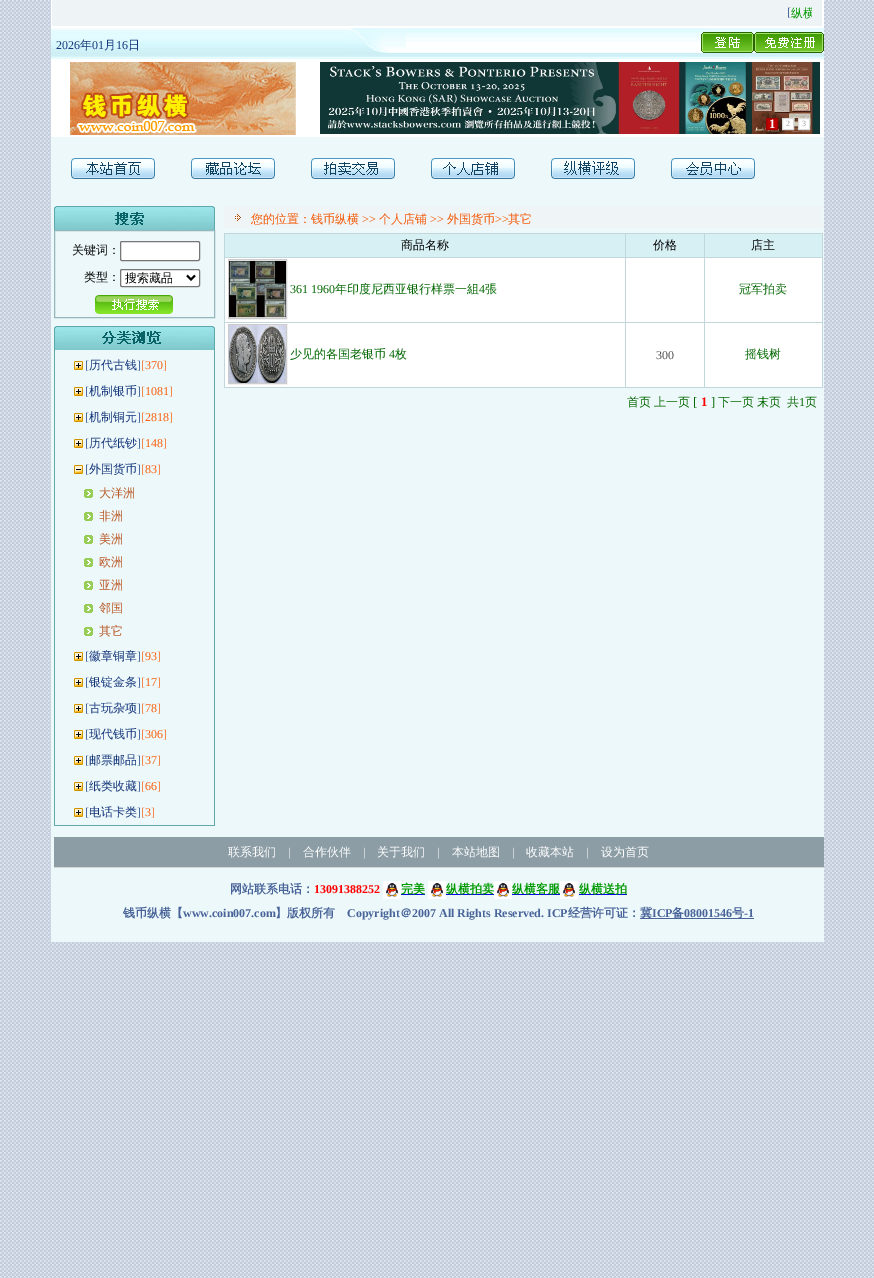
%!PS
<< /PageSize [874 1278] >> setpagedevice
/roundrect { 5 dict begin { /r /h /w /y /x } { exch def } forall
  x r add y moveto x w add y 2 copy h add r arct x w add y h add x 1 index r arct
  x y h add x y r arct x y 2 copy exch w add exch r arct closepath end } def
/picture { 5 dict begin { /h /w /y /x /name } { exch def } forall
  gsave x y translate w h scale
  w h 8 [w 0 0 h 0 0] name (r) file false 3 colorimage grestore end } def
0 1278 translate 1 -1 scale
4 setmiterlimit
1 setgray
0 0 874 1278 rectfill
(img1.rgb) 0 0 874 1278 picture
51 0 773 137 rectfill
0.933 0.953 0.965 setrgbcolor
52 0 770 26 rectfill
/LiberationSerif-Regular [12 0 0 -12 0 0] selectfont
0.086 0.216 0.486 setrgbcolor
787 16 moveto ([) show
gsave
62 5 750 17 rectclip
/WenQuanYiZenHei-Medium [12 0 0 -12 0 0] selectfont
0 0.6 0 setrgbcolor
791 17 moveto (纵横) show
grestore
(img2.rgb) 51 28 295 31 picture
56 49 moveto (2026) show
/WenQuanYiZenHei-Medium [12 0 0 -12 0 0] selectfont
80 49 moveto (年) show
/LiberationSerif-Regular [12 0 0 -12 0 0] selectfont
92 49 moveto (01) show
/WenQuanYiZenHei-Medium [12 0 0 -12 0 0] selectfont
104 49 moveto (月) show
/LiberationSerif-Regular [12 0 0 -12 0 0] selectfont
116 49 moveto (16) show
/WenQuanYiZenHei-Medium [12 0 0 -12 0 0] selectfont
128 49 moveto (日) show
(img3.rgb) 346 28 478 31 picture
(img4.rgb) 701 32 53 21 picture
(img5.rgb) 754 32 70 21 picture
(img6.rgb) 70 62 226 73 picture
(img7.rgb) 320 62 500 72 picture
0.753 0.004 0 setrgbcolor
newpath 766.5 118.5 moveto 777.5 118.5 lineto 777.5 129.5 lineto 766.5 129.5 lineto closepath gsave fill grestore
0.627 0.004 0 setrgbcolor
stroke
/LiberationSerif-Bold [13 0 0 -13 0 0] selectfont
1 setgray
769 128 moveto (1) show
newpath 782.5 118.5 moveto 793.5 118.5 lineto 793.5 129.5 lineto 782.5 129.5 lineto closepath gsave fill grestore
0.863 setgray
stroke
/LiberationSerif-Regular [8 0 0 -8 0 0] selectfont
0.624 setgray
786 126 moveto (2) show
1 setgray
newpath 798.5 118.5 moveto 809.5 118.5 lineto 809.5 129.5 lineto 798.5 129.5 lineto closepath gsave fill grestore
0.863 setgray
stroke
0.624 setgray
802 126 moveto (3) show
0.929 0.973 0.98 setrgbcolor
51 137 773 805 rectfill
(img8.rgb) 71 158 84 21 picture
(img9.rgb) 191 158 84 21 picture
(img10.rgb) 311 158 84 21 picture
(img11.rgb) 431 158 84 21 picture
(img12.rgb) 551 158 84 21 picture
(img13.rgb) 671 158 84 21 picture
(img14.rgb) 54 206 161 24 picture
0.584 0.714 0.741 setrgbcolor
54.5 230.5 160 87 rectstroke
/WenQuanYiZenHei-Medium [12 0 0 -12 0 0] selectfont
0.047 setgray
72 254 moveto (关键词：) show
1 setgray
120.5 241.5 79 19 1.5 roundrect gsave fill grestore
0.463 setgray
stroke
0.047 setgray
84 281 moveto (类型：) show
1 setgray
120.5 269.5 79 17 1.5 roundrect gsave fill grestore
0.463 setgray
stroke
0.008 setgray
2 setlinewidth
newpath 187 275.5 moveto 191 279.5 lineto 195 275.5 lineto stroke
125 282 moveto (搜索藏品) show
(img15.rgb) 95 295 78 19 picture
(img16.rgb) 54 326 161 24 picture
0.38 0.659 0.667 setrgbcolor
214 350 1 476 rectfill
54 825 161 1 rectfill
54 350 1 476 rectfill
(img17.rgb) 74 361 9 9 picture
/LiberationSerif-Regular [12 0 0 -12 0 0] selectfont
0.086 0.216 0.486 setrgbcolor
85 369 moveto ([) show
/WenQuanYiZenHei-Medium [12 0 0 -12 0 0] selectfont
89 369 moveto (历代古钱) show
/LiberationSerif-Regular [12 0 0 -12 0 0] selectfont
137 369 moveto (]) show
0.98 0.369 0.043 setrgbcolor
141 369 moveto ([370]) show
(img17.rgb) 74 387 9 9 picture
0.086 0.216 0.486 setrgbcolor
85 395 moveto ([) show
/WenQuanYiZenHei-Medium [12 0 0 -12 0 0] selectfont
89 395 moveto (机制银币) show
/LiberationSerif-Regular [12 0 0 -12 0 0] selectfont
137 395 moveto (]) show
0.98 0.369 0.043 setrgbcolor
141 395 moveto ([1081]) show
(img17.rgb) 74 413 9 9 picture
0.086 0.216 0.486 setrgbcolor
85 421 moveto ([) show
/WenQuanYiZenHei-Medium [12 0 0 -12 0 0] selectfont
89 421 moveto (机制铜元) show
/LiberationSerif-Regular [12 0 0 -12 0 0] selectfont
137 421 moveto (]) show
0.98 0.369 0.043 setrgbcolor
141 421 moveto ([2818]) show
(img17.rgb) 74 439 9 9 picture
0.086 0.216 0.486 setrgbcolor
85 447 moveto ([) show
/WenQuanYiZenHei-Medium [12 0 0 -12 0 0] selectfont
89 447 moveto (历代纸钞) show
/LiberationSerif-Regular [12 0 0 -12 0 0] selectfont
137 447 moveto (]) show
0.98 0.369 0.043 setrgbcolor
141 447 moveto ([148]) show
(img18.rgb) 74 465 9 9 picture
0.086 0.216 0.486 setrgbcolor
85 473 moveto ([) show
/WenQuanYiZenHei-Medium [12 0 0 -12 0 0] selectfont
89 473 moveto (外国货币) show
/LiberationSerif-Regular [12 0 0 -12 0 0] selectfont
137 473 moveto (]) show
0.98 0.369 0.043 setrgbcolor
141 473 moveto ([83]) show
(img19.rgb) 84 489 9 9 picture
/WenQuanYiZenHei-Medium [12 0 0 -12 0 0] selectfont
0.729 0.349 0.149 setrgbcolor
99 497 moveto (大洋洲) show
(img19.rgb) 84 512 9 9 picture
99 520 moveto (非洲) show
(img19.rgb) 84 535 9 9 picture
99 543 moveto (美洲) show
(img19.rgb) 84 558 9 9 picture
99 566 moveto (欧洲) show
(img19.rgb) 84 581 9 9 picture
99 589 moveto (亚洲) show
(img19.rgb) 84 604 9 9 picture
99 612 moveto (邻国) show
(img19.rgb) 84 627 9 9 picture
99 635 moveto (其它) show
(img17.rgb) 74 652 9 9 picture
/LiberationSerif-Regular [12 0 0 -12 0 0] selectfont
0.086 0.216 0.486 setrgbcolor
85 660 moveto ([) show
/WenQuanYiZenHei-Medium [12 0 0 -12 0 0] selectfont
89 660 moveto (徽章铜章) show
/LiberationSerif-Regular [12 0 0 -12 0 0] selectfont
137 660 moveto (]) show
0.98 0.369 0.043 setrgbcolor
141 660 moveto ([93]) show
(img17.rgb) 74 678 9 9 picture
0.086 0.216 0.486 setrgbcolor
85 686 moveto ([) show
/WenQuanYiZenHei-Medium [12 0 0 -12 0 0] selectfont
89 686 moveto (银锭金条) show
/LiberationSerif-Regular [12 0 0 -12 0 0] selectfont
137 686 moveto (]) show
0.98 0.369 0.043 setrgbcolor
141 686 moveto ([17]) show
(img17.rgb) 74 704 9 9 picture
0.086 0.216 0.486 setrgbcolor
85 712 moveto ([) show
/WenQuanYiZenHei-Medium [12 0 0 -12 0 0] selectfont
89 712 moveto (古玩杂项) show
/LiberationSerif-Regular [12 0 0 -12 0 0] selectfont
137 712 moveto (]) show
0.98 0.369 0.043 setrgbcolor
141 712 moveto ([78]) show
(img17.rgb) 74 730 9 9 picture
0.086 0.216 0.486 setrgbcolor
85 738 moveto ([) show
/WenQuanYiZenHei-Medium [12 0 0 -12 0 0] selectfont
89 738 moveto (现代钱币) show
/LiberationSerif-Regular [12 0 0 -12 0 0] selectfont
137 738 moveto (]) show
0.98 0.369 0.043 setrgbcolor
141 738 moveto ([306]) show
(img17.rgb) 74 756 9 9 picture
0.086 0.216 0.486 setrgbcolor
85 764 moveto ([) show
/WenQuanYiZenHei-Medium [12 0 0 -12 0 0] selectfont
89 764 moveto (邮票邮品) show
/LiberationSerif-Regular [12 0 0 -12 0 0] selectfont
137 764 moveto (]) show
0.98 0.369 0.043 setrgbcolor
141 764 moveto ([37]) show
(img17.rgb) 74 782 9 9 picture
0.086 0.216 0.486 setrgbcolor
85 790 moveto ([) show
/WenQuanYiZenHei-Medium [12 0 0 -12 0 0] selectfont
89 790 moveto (纸类收藏) show
/LiberationSerif-Regular [12 0 0 -12 0 0] selectfont
137 790 moveto (]) show
0.98 0.369 0.043 setrgbcolor
141 790 moveto ([66]) show
(img17.rgb) 74 808 9 9 picture
0.086 0.216 0.486 setrgbcolor
85 816 moveto ([) show
/WenQuanYiZenHei-Medium [12 0 0 -12 0 0] selectfont
89 816 moveto (电话卡类) show
/LiberationSerif-Regular [12 0 0 -12 0 0] selectfont
137 816 moveto (]) show
0.98 0.369 0.043 setrgbcolor
141 816 moveto ([3]) show
0.937 0.957 0.969 setrgbcolor
224 206 599 22 rectfill
(img20.rgb) 235 214 6 7 picture
/WenQuanYiZenHei-Medium [12 0 0 -12 0 0] selectfont
0.957 0.349 0.024 setrgbcolor
251 223 moveto (您的位置：钱币纵横) show
/LiberationSerif-Regular [12 0 0 -12 0 0] selectfont
362 223 moveto (>>) show
/WenQuanYiZenHei-Medium [12 0 0 -12 0 0] selectfont
379 223 moveto (个人店铺) show
/LiberationSerif-Regular [12 0 0 -12 0 0] selectfont
430 223 moveto (>>) show
/WenQuanYiZenHei-Medium [12 0 0 -12 0 0] selectfont
447 223 moveto (外国货币) show
/LiberationSerif-Regular [12 0 0 -12 0 0] selectfont
495 223 moveto (>>) show
/WenQuanYiZenHei-Medium [12 0 0 -12 0 0] selectfont
508 223 moveto (其它) show
0.757 0.843 0.859 setrgbcolor
224 233 599 155 rectfill
0.843 0.941 0.957 setrgbcolor
225 234 400 23 rectfill
0.008 setgray
401 249 moveto (商品名称) show
0.843 0.941 0.957 setrgbcolor
626 234 78 23 rectfill
0.008 setgray
653 249 moveto (价格) show
0.843 0.941 0.957 setrgbcolor
705 234 117 23 rectfill
0.008 setgray
751 249 moveto (店主) show
1 setgray
225 258 400 64 rectfill
0.8 setgray
1 setlinewidth
228.5 259.5 58 59 rectstroke
(img21.rgb) 229 260 57 58 picture
/LiberationSerif-Regular [12 0 0 -12 0 0] selectfont
0.012 0.408 0.008 setrgbcolor
290 293 moveto (361 1960) show
/WenQuanYiZenHei-Medium [12 0 0 -12 0 0] selectfont
335 293 moveto (年印度尼西亚银行样票一組) show
/LiberationSerif-Regular [12 0 0 -12 0 0] selectfont
479 293 moveto (4) show
/WenQuanYiZenHei-Medium [12 0 0 -12 0 0] selectfont
485 293 moveto (張) show
1 setgray
626 258 78 64 rectfill
705 258 117 64 rectfill
0.012 0.408 0.008 setrgbcolor
739 293 moveto (冠军拍卖) show
1 setgray
225 323 400 64 rectfill
0.8 setgray
228.5 324.5 58 59 rectstroke
(img22.rgb) 229 325 57 58 picture
0.012 0.408 0.008 setrgbcolor
290 358 moveto (少见的各国老银币) show
/LiberationSerif-Regular [12 0 0 -12 0 0] selectfont
389 358 moveto (4) show
/WenQuanYiZenHei-Medium [12 0 0 -12 0 0] selectfont
395 358 moveto (枚) show
1 setgray
626 323 78 64 rectfill
/LiberationSerif-Regular [12 0 0 -12 0 0] selectfont
0.318 setgray
656 359 moveto (300) show
1 setgray
705 323 117 64 rectfill
/WenQuanYiZenHei-Medium [12 0 0 -12 0 0] selectfont
0.012 0.408 0.008 setrgbcolor
745 358 moveto (摇钱树) show
627 406 moveto (首页) show
654 406 moveto (上一页) show
/LiberationSerif-Regular [13 0 0 -13 0 0] selectfont
693 406 moveto ([) show
/LiberationSerif-Bold [13 0 0 -13 0 0] selectfont
1 0 0 setrgbcolor
701 406 moveto (1) show
/LiberationSerif-Regular [13 0 0 -13 0 0] selectfont
0.012 0.408 0.008 setrgbcolor
711 406 moveto (]) show
/WenQuanYiZenHei-Medium [12 0 0 -12 0 0] selectfont
718 406 moveto (下一页) show
757 406 moveto (末页) show
787 406 moveto (共) show
/LiberationSerif-Regular [12 0 0 -12 0 0] selectfont
799 406 moveto (1) show
/WenQuanYiZenHei-Medium [12 0 0 -12 0 0] selectfont
805 406 moveto (页) show
0.549 0.616 0.647 setrgbcolor
54 837 770 30 rectfill
1 setgray
228 856 moveto (联系我们) show
/LiberationSerif-Regular [12 0 0 -12 0 0] selectfont
288 856 moveto (|) show
/WenQuanYiZenHei-Medium [12 0 0 -12 0 0] selectfont
303 856 moveto (合作伙伴) show
/LiberationSerif-Regular [12 0 0 -12 0 0] selectfont
363 856 moveto (|) show
/WenQuanYiZenHei-Medium [12 0 0 -12 0 0] selectfont
377 856 moveto (关于我们) show
/LiberationSerif-Regular [12 0 0 -12 0 0] selectfont
437 856 moveto (|) show
/WenQuanYiZenHei-Medium [12 0 0 -12 0 0] selectfont
452 856 moveto (本站地图) show
/LiberationSerif-Regular [12 0 0 -12 0 0] selectfont
512 856 moveto (|) show
/WenQuanYiZenHei-Medium [12 0 0 -12 0 0] selectfont
526 856 moveto (收藏本站) show
/LiberationSerif-Regular [12 0 0 -12 0 0] selectfont
586 856 moveto (|) show
/WenQuanYiZenHei-Medium [12 0 0 -12 0 0] selectfont
601 856 moveto (设为首页) show
0.843 setgray
54 867 770 1 rectfill
/WenQuanYiZenHei-Bold [12 0 0 -12 0 0] selectfont
0.282 0.392 0.6 setrgbcolor
230 893 moveto (网站联系电话：) show
/LiberationSerif-Bold [12 0 0 -12 0 0] selectfont
1 0 0 setrgbcolor
314 893 moveto (13091388252) show
(img23.rgb) 383 881 18 18 picture
0 0 0.933 setrgbcolor
401 894 24 1 rectfill
/WenQuanYiZenHei-Bold [12 0 0 -12 0 0] selectfont
0 0.6 0 setrgbcolor
401 893 moveto (完美) show
(img24.rgb) 428 881 18 18 picture
0 0 0.933 setrgbcolor
446 894 48 1 rectfill
0 0.6 0 setrgbcolor
446 893 moveto (纵横拍卖) show
(img23.rgb) 494 881 18 18 picture
0 0 0.933 setrgbcolor
512 894 48 1 rectfill
0 0.6 0 setrgbcolor
512 893 moveto (纵横客服) show
(img23.rgb) 560 881 18 18 picture
0 0 0.933 setrgbcolor
579 894 48 1 rectfill
0 0.6 0 setrgbcolor
579 893 moveto (纵横送拍) show
0.282 0.392 0.6 setrgbcolor
123 917 moveto (钱币纵横【) show
/LiberationSerif-Bold [12 0 0 -12 0 0] selectfont
183 917 moveto (www.coin007.com) show
/WenQuanYiZenHei-Bold [12 0 0 -12 0 0] selectfont
275 917 moveto (】版权所有) show
/LiberationSerif-Bold [12 0 0 -12 0 0] selectfont
347 917 moveto (Copyright) show
/WenQuanYiZenHei-Bold [12 0 0 -12 0 0] selectfont
400 917 moveto (＠) show
/LiberationSerif-Bold [12 0 0 -12 0 0] selectfont
412 917 moveto (2007 All Rights Reserved. ICP) show
/WenQuanYiZenHei-Bold [12 0 0 -12 0 0] selectfont
568 917 moveto (经营许可证：) show
640 918 114 1 rectfill
640 917 moveto (冀) show
/LiberationSerif-Bold [12 0 0 -12 0 0] selectfont
652 917 moveto (ICP) show
/WenQuanYiZenHei-Bold [12 0 0 -12 0 0] selectfont
672 917 moveto (备) show
/LiberationSerif-Bold [12 0 0 -12 0 0] selectfont
684 917 moveto (08001546) show
/WenQuanYiZenHei-Bold [12 0 0 -12 0 0] selectfont
732 917 moveto (号) show
/LiberationSerif-Bold [12 0 0 -12 0 0] selectfont
744 917 moveto (-1) show
showpage
